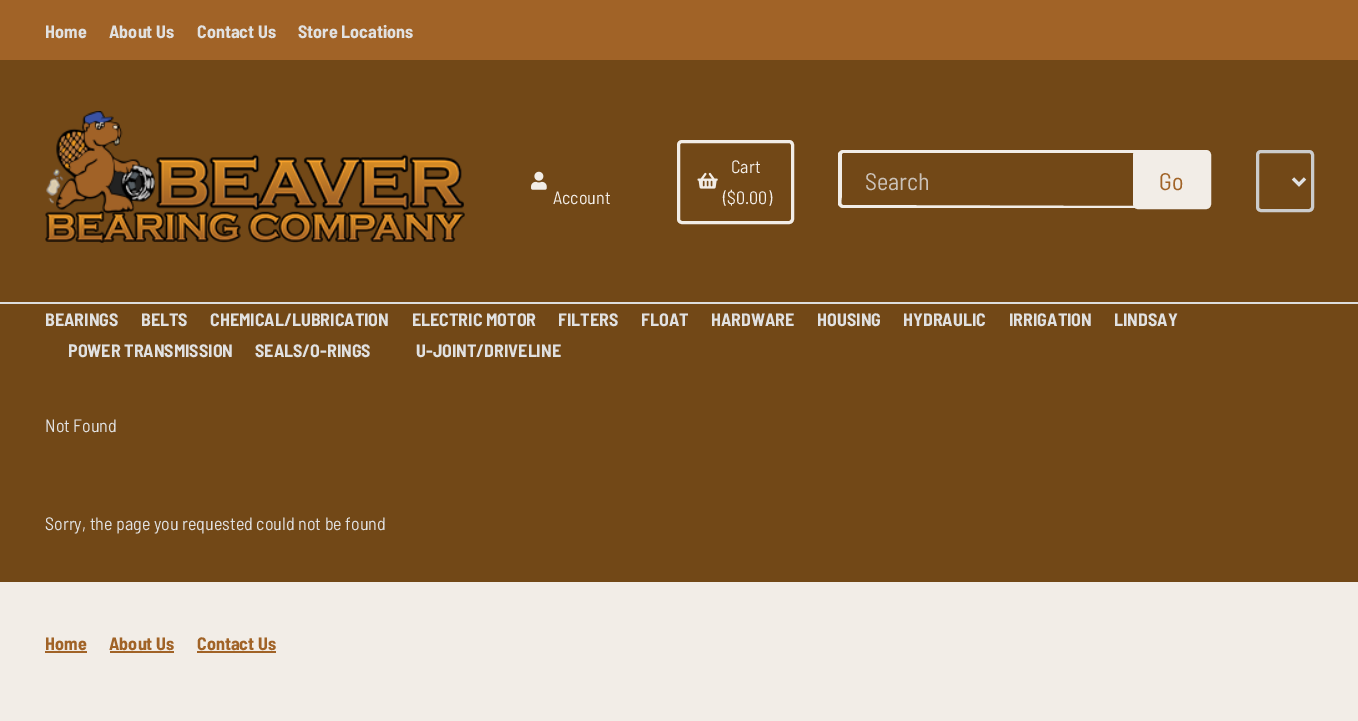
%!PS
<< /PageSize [1358 721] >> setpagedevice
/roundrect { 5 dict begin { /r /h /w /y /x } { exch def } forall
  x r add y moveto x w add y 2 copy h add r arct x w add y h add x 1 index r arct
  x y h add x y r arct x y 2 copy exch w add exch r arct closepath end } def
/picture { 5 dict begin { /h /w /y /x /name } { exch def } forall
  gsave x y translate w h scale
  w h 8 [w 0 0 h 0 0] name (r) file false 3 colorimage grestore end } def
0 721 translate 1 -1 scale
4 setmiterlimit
0.447 0.282 0.09 setrgbcolor
0 0 1358 721 rectfill
0.631 0.388 0.153 setrgbcolor
0 0 1358 60 rectfill
/BarlowSemiCondensed-Bold [18 0 0 -18 0 0] selectfont
0.882 setgray
45 38 moveto (Home) show
109 38 moveto (About Us) show
197 38 moveto (Contact Us) show
298 38 moveto (Store Locations) show
0.867 setgray
0 302 1358 2 rectfill
(img1.rgb) 45 111 420 132 picture
0.949 0.929 0.906 setrgbcolor
3 setlinewidth
678.5 141.5 114 81 3.5 roundrect stroke
/BarlowSemiCondensed-Regular [18 0 0 -18 0 0] selectfont
731 173 moveto (Cart) show
(img2.rgb) 697 172 21 17 picture
723 204 moveto (\($0.00\)) show
newpath 843 150 moveto 1137 150 lineto 1137 208 lineto 843 208 lineto 841 208 838 206 838 204 curveto 838 154 lineto 838 152 841 150 843 150 curveto closepath 843 153 moveto 1137 153 lineto 1137 206 lineto 843 205 lineto 840 205 842 197 842 196 curveto 842 154 lineto closepath eofill
/BarlowSemiCondensed-Regular [24 0 0 -24 0 0] selectfont
0.796 0.761 0.725 setrgbcolor
865 190 moveto (Search) show
0.949 0.929 0.906 setrgbcolor
1134.5 151.5 75 56 3.5 roundrect gsave fill grestore
stroke
0.631 0.388 0.153 setrgbcolor
1159 190 moveto (Go) show
0.8 setgray
1257.5 151.5 55 59 3.5 roundrect stroke
0.882 setgray
newpath 1293 178.5 moveto 1299 184.5 lineto 1305 178.5 lineto stroke
(img3.rgb) 531 171 16 19 picture
/BarlowSemiCondensed-Regular [18 0 0 -18 0 0] selectfont
0.949 0.929 0.906 setrgbcolor
553 204 moveto (Account) show
/BarlowSemiCondensed-Bold [18 0 0 -18 0 0] selectfont
0.882 setgray
45 326 moveto (BEARINGS) show
141 326 moveto (BELTS) show
210 326 moveto (CHEMICAL/LUBRICATION) show
412 326 moveto (ELECTRIC MOTOR) show
558 326 moveto (FILTERS) show
641 326 moveto (FLOAT) show
711 326 moveto (HARDWARE) show
817 326 moveto (HOUSING) show
903 326 moveto (HYDRAULIC) show
1009 326 moveto (IRRIGATION) show
1114 326 moveto (LINDSAY) show
68 357 moveto (POWER TRANSMISSION) show
255 357 moveto (SEALS/O-RINGS) show
416 357 moveto (U-JOINT/DRIVELINE) show
/BarlowSemiCondensed-Regular [18 0 0 -18 0 0] selectfont
45 432 moveto (Not Found) show
45 530 moveto (Sorry, the page you requested could not be found) show
0.949 0.929 0.906 setrgbcolor
0 582 1358 139 rectfill
/BarlowSemiCondensed-Bold [18 0 0 -18 0 0] selectfont
0.631 0.388 0.153 setrgbcolor
45 650 moveto (Home) show
45 651 42 2 rectfill
109 650 moveto (About Us) show
110 651 64 2 rectfill
197 650 moveto (Contact Us) show
197 651 79 2 rectfill
showpage
